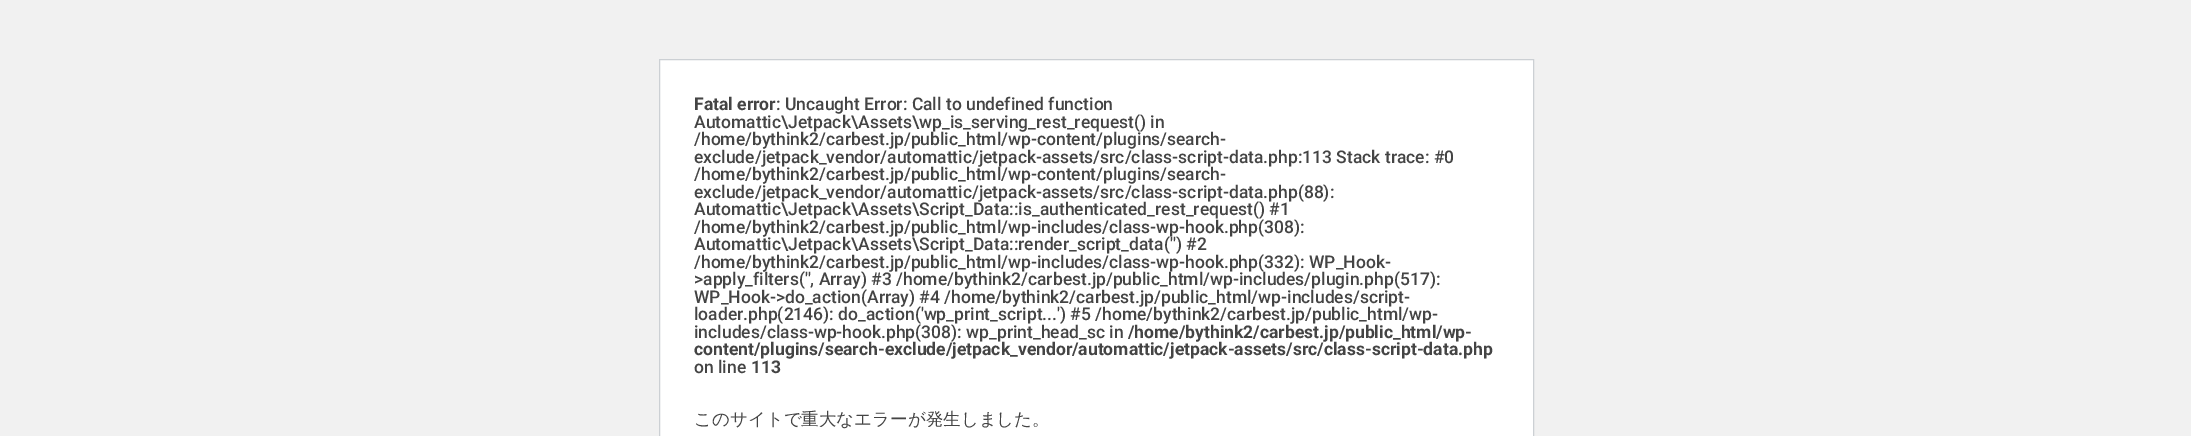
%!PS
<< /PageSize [2191 436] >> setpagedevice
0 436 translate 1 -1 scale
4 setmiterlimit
0.945 setgray
0 0 2191 436 rectfill
1 setgray
newpath 659.5 59.5 moveto 1533.5 59.5 lineto 1533.5 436.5 lineto 659.5 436.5 lineto closepath gsave fill grestore
0.8 0.816 0.831 setrgbcolor
stroke
/Roboto-Bold [17.5 0 0 -17.5 0 0] selectfont
0.267 setgray
694 110 moveto (Fatal error) show
/Roboto-Medium [17.5 0 0 -17.5 0 0] selectfont
776 110 moveto (: Uncaught Error: Call to undefined function) show
694 128 moveto (Automattic\\Jetpack\\Assets\\wp_is_serving_rest_request\(\) in) show
694 145 moveto (/home/bythink2/carbest.jp/public_html/wp-content/plugins/search-) show
694 163 moveto (exclude/jetpack_vendor/automattic/jetpack-assets/src/class-script-data.php:113 Stack trace: #0) show
694 180 moveto (/home/bythink2/carbest.jp/public_html/wp-content/plugins/search-) show
694 198 moveto (exclude/jetpack_vendor/automattic/jetpack-assets/src/class-script-data.php\(88\):) show
694 215 moveto (Automattic\\Jetpack\\Assets\\Script_Data::is_authenticated_rest_request\(\) #1) show
694 233 moveto (/home/bythink2/carbest.jp/public_html/wp-includes/class-wp-hook.php\(308\):) show
694 250 moveto (Automattic\\Jetpack\\Assets\\Script_Data::render_script_data\(''\) #2) show
694 268 moveto (/home/bythink2/carbest.jp/public_html/wp-includes/class-wp-hook.php\(332\): WP_Hook-) show
694 285 moveto (>apply_filters\('', Array\) #3 /home/bythink2/carbest.jp/public_html/wp-includes/plugin.php\(517\):) show
694 303 moveto (WP_Hook->do_action\(Array\) #4 /home/bythink2/carbest.jp/public_html/wp-includes/script-) show
694 320 moveto (loader.php\(2146\): do_action\('wp_print_script...'\) #5 /home/bythink2/carbest.jp/public_html/wp-) show
694 338 moveto (includes/class-wp-hook.php\(308\): wp_print_head_sc in) show
/Roboto-Bold [17.5 0 0 -17.5 0 0] selectfont
1128 338 moveto (/home/bythink2/carbest.jp/public_html/wp-) show
694 355 moveto (content/plugins/search-exclude/jetpack_vendor/automattic/jetpack-assets/src/class-script-data.php) show
/Roboto-Medium [17.5 0 0 -17.5 0 0] selectfont
694 373 moveto (on line) show
/Roboto-Bold [17.5 0 0 -17.5 0 0] selectfont
751 373 moveto (113) show
/WenQuanYiZenHei-Medium [17.5 0 0 -17.5 0 0] selectfont
694 425 moveto (このサイトで重大なエラーが発生しました。) show
showpage
